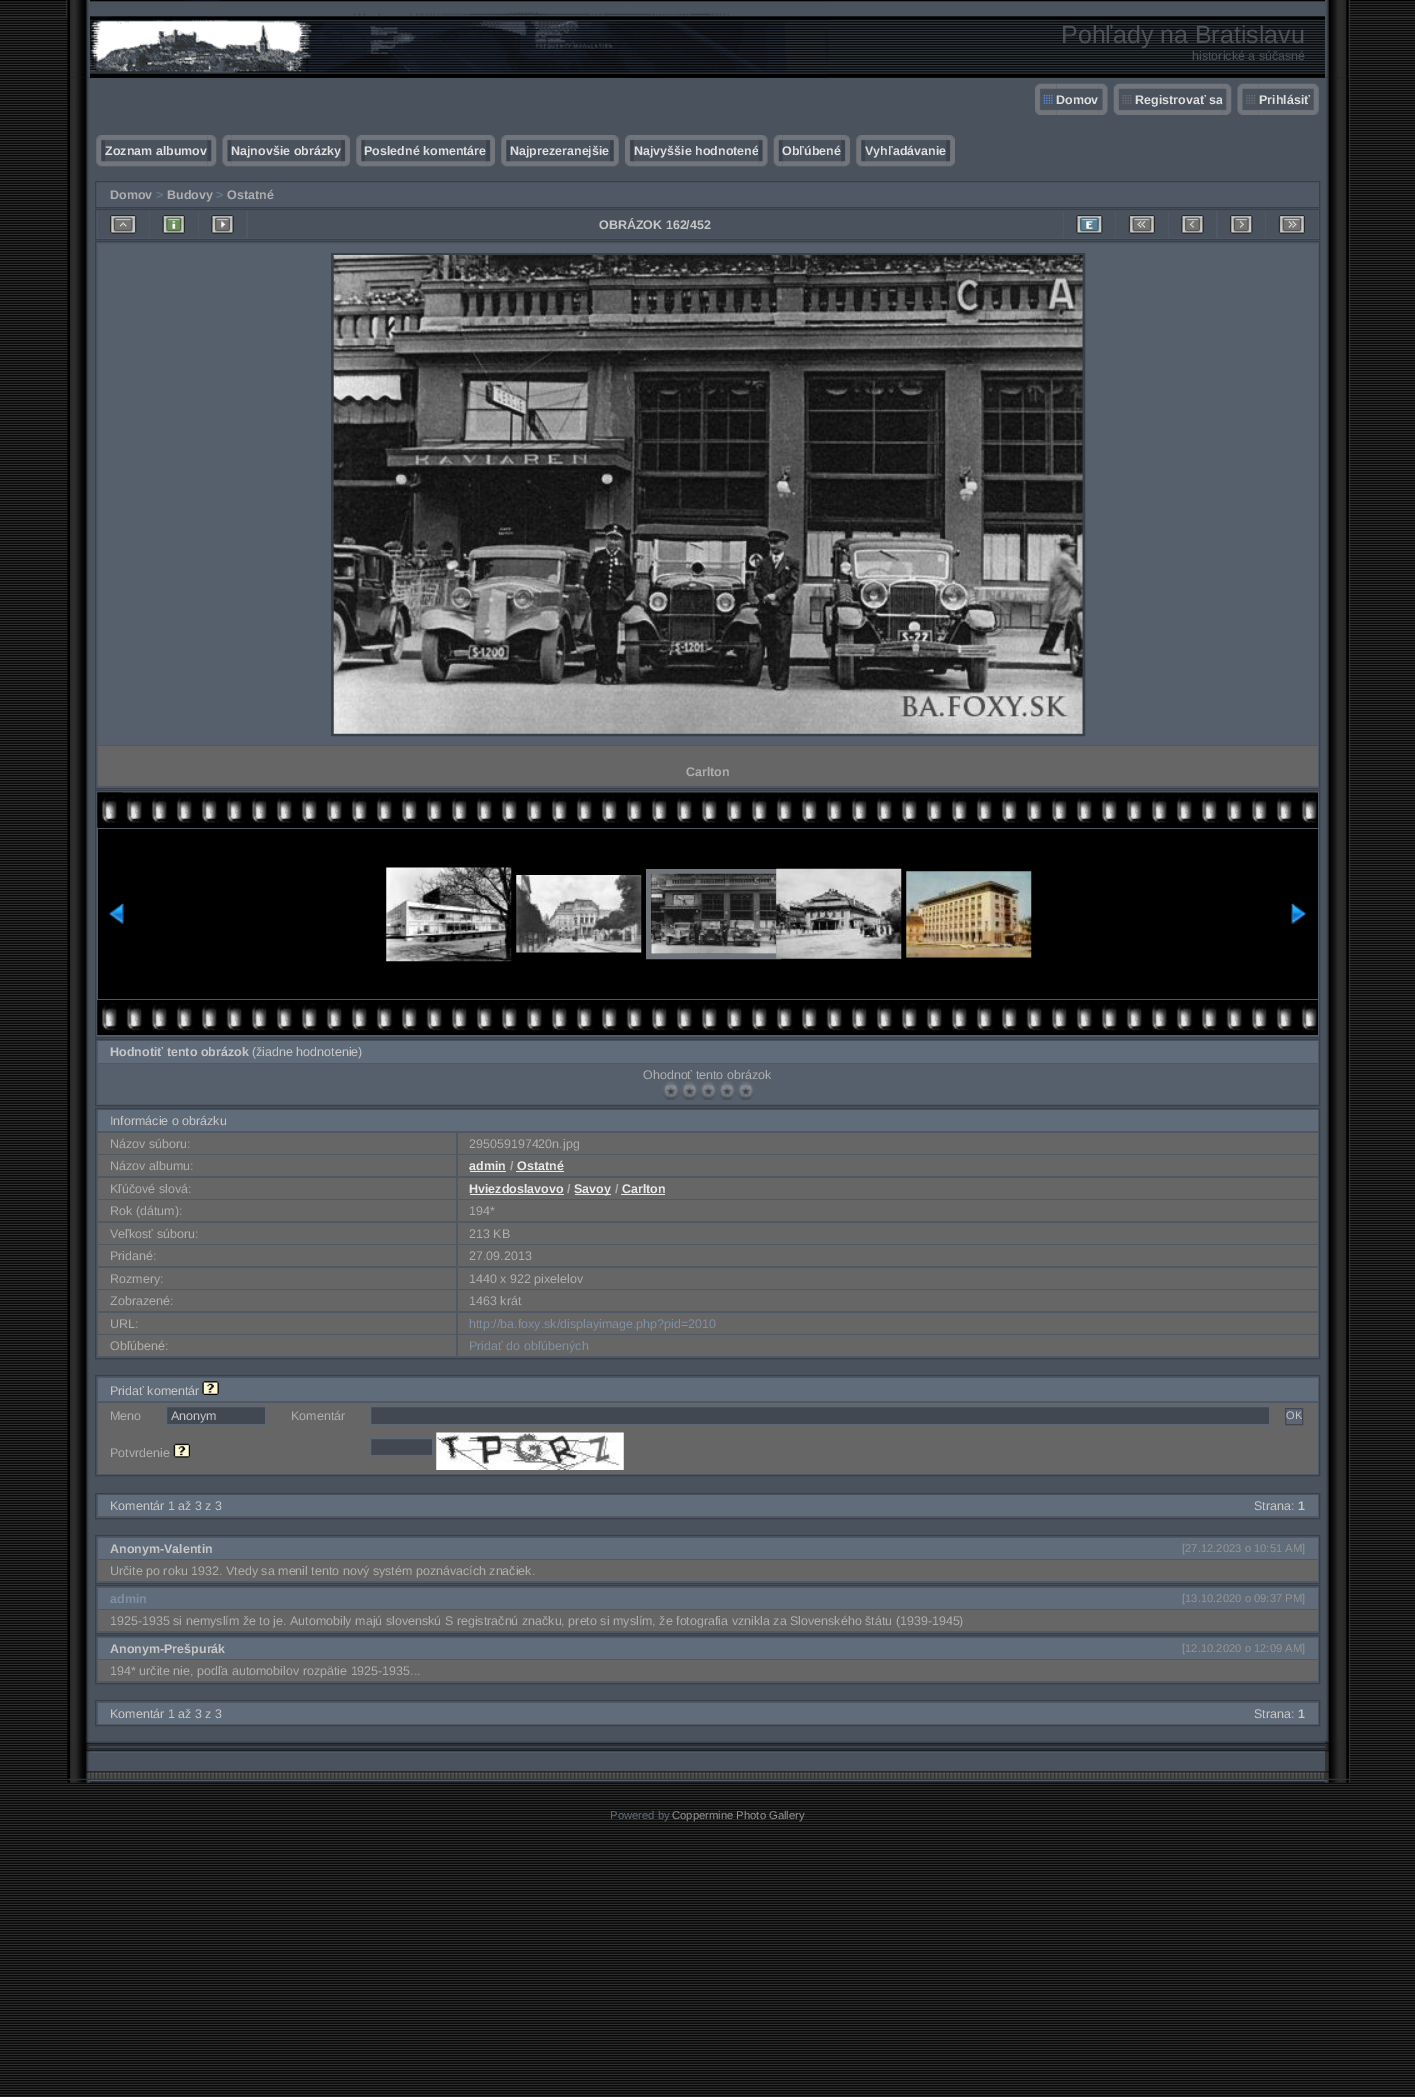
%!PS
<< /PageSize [1415 2097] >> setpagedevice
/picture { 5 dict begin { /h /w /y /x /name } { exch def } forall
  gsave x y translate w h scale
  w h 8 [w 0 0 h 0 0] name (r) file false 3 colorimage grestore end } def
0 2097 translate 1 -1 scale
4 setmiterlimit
1 setgray
0 0 1415 2097 rectfill
(img1.rgb) 0 0 1415 2097 picture
(img3.rgb) 67 0 23 78 picture
(img2.rgb) 0 0 68 18 picture
(img4.rgb) 67 0 1 18 picture
(img5.rgb) 90 0 1235 78 picture
(img6.rgb) 90 0 739 78 picture
/LiberationSans-Regular [25 0 0 -25 0 0] selectfont
0.298 0.318 0.341 setrgbcolor
1061 43 moveto (Pohľady na Bratislavu) show
/LiberationSans-Regular [12.5 0 0 -12.5 0 0] selectfont
1192 60 moveto (historické a súčasné) show
(img7.rgb) 1325 0 24 78 picture
(img9.rgb) 1348 0 3 1783 picture
(img8.rgb) 1348 0 1 18 picture
(img10.rgb) 1348 0 67 18 picture
(img11.rgb) 67 77 23 1665 picture
0.286 0.322 0.365 setrgbcolor
90 78 1235 1663 rectfill
(img12.rgb) 1035 83 21 32 picture
(img13.rgb) 1056 83 43 32 picture
/LiberationSans-Bold [12.5 0 0 -12.5 0 0] selectfont
0.875 setgray
1056 104 moveto (Domov) show
(img14.rgb) 1098 83 10 32 picture
(img15.rgb) 1113 83 22 32 picture
(img16.rgb) 1135 83 88 32 picture
1135 104 moveto (Registrovať sa) show
(img17.rgb) 1222 83 10 32 picture
(img19.rgb) 1258 83 52 32 picture
(img18.rgb) 1237 83 22 32 picture
1259 104 moveto (Prihlásiť) show
(img20.rgb) 1310 83 9 32 picture
(img21.rgb) 96 135 9 32 picture
(img22.rgb) 105 135 103 32 picture
105 155 moveto (Zoznam albumov) show
(img23.rgb) 207 135 10 32 picture
(img25.rgb) 231 135 111 32 picture
(img24.rgb) 222 135 10 32 picture
231 155 moveto (Najnovšie obrázky) show
(img26.rgb) 341 135 9 32 picture
(img21.rgb) 356 135 9 32 picture
(img27.rgb) 365 135 122 32 picture
364 155 moveto (Posledné komentáre) show
(img28.rgb) 486 135 9 32 picture
(img21.rgb) 501 135 9 32 picture
(img29.rgb) 510 135 100 32 picture
510 155 moveto (Najprezeranejšie) show
(img30.rgb) 610 135 9 32 picture
(img32.rgb) 633 135 126 32 picture
(img31.rgb) 625 135 9 32 picture
634 155 moveto (Najvyššie hodnotené) show
(img33.rgb) 758 135 10 32 picture
(img35.rgb) 782 135 60 32 picture
(img34.rgb) 773 135 10 32 picture
782 155 moveto (Obľúbené) show
(img26.rgb) 841 135 9 32 picture
(img21.rgb) 856 135 9 32 picture
(img36.rgb) 865 135 82 32 picture
865 155 moveto (Vyhľadávanie) show
(img26.rgb) 946 135 9 32 picture
0.31 0.345 0.392 setrgbcolor
newpath 95.5 181.5 moveto 1319.5 181.5 lineto 1319.5 207.5 lineto 95.5 207.5 lineto closepath gsave fill grestore
0.224 0.251 0.286 setrgbcolor
stroke
0.682 setgray
110 199 moveto (Domov) show
0.416 0.467 0.525 setrgbcolor
156 199 moveto (>) show
0.682 setgray
167 199 moveto (Budovy) show
0.416 0.467 0.525 setrgbcolor
216 199 moveto (>) show
0.682 setgray
227 199 moveto (Ostatné) show
0.31 0.345 0.392 setrgbcolor
newpath 95.5 209.5 moveto 1319.5 209.5 lineto 1319.5 239.5 lineto 95.5 239.5 lineto closepath gsave fill grestore
0.224 0.251 0.286 setrgbcolor
stroke
0.286 0.322 0.365 setrgbcolor
98 211 51 27 rectfill
(img37.rgb) 110 215 27 19 picture
150 211 48 27 rectfill
(img38.rgb) 162 215 23 19 picture
199 211 47 27 rectfill
(img39.rgb) 211 215 23 19 picture
248 211 815 27 rectfill
0.78 setgray
599 229 moveto (OBRÁZOK 162/452) show
0.286 0.322 0.365 setrgbcolor
1064 211 51 27 rectfill
(img40.rgb) 1076 215 27 19 picture
1116 211 52 27 rectfill
(img41.rgb) 1128 215 27 19 picture
1169 211 47 27 rectfill
(img42.rgb) 1181 215 23 19 picture
1218 211 47 27 rectfill
(img43.rgb) 1230 215 23 19 picture
1266 211 52 27 rectfill
(img44.rgb) 1278 215 27 19 picture
0.31 0.345 0.392 setrgbcolor
newpath 95.5 241.5 moveto 1319.5 241.5 lineto 1319.5 788.5 lineto 95.5 788.5 lineto closepath gsave fill grestore
0.224 0.251 0.286 setrgbcolor
stroke
0.337 0.376 0.427 setrgbcolor
98 244 1220 501 rectfill
0.224 0.251 0.282 setrgbcolor
3 setlinewidth
332.5 254.5 751 480 rectstroke
(img45.rgb) 333 255 750 479 picture
0.4 setgray
98 746 1220 40 rectfill
0.682 setgray
686 776 moveto (Carlton) show
0.31 0.345 0.392 setrgbcolor
newpath 95.5 790.5 moveto 1319.5 790.5 lineto 1319.5 1037.5 lineto 95.5 1037.5 lineto closepath gsave fill grestore
0.224 0.251 0.286 setrgbcolor
1 setlinewidth
stroke
0 setgray
98 793 1220 35 rectfill
(img46.rgb) 97 792 1221 36 picture
(img47.rgb) 97 792 26 36 picture
98 829 1220 170 rectfill
(img48.rgb) 108 903 16 21 picture
(img49.rgb) 386 867 126 95 picture
(img50.rgb) 516 875 126 78 picture
0.447 0.463 0.486 setrgbcolor
5 setlinewidth
648.5 871.5 130 85 rectstroke
(img51.rgb) 651 873 126 81 picture
(img52.rgb) 776 868 126 91 picture
(img53.rgb) 906 871 126 87 picture
(img54.rgb) 1291 903 16 21 picture
0 setgray
1317 1000 1 35 rectfill
(img55.rgb) 97 1000 1221 35 picture
(img56.rgb) 97 1000 7 35 picture
0.31 0.345 0.392 setrgbcolor
newpath 95.5 1039.5 moveto 1319.5 1039.5 lineto 1319.5 1105.5 lineto 95.5 1105.5 lineto closepath gsave fill grestore
0.224 0.251 0.286 setrgbcolor
1 setlinewidth
stroke
0.38 0.424 0.478 setrgbcolor
98 1041 1220 22 rectfill
0.78 setgray
110 1056 moveto (Hodnotiť tento obrázok) show
/LiberationSans-Regular [12.5 0 0 -12.5 0 0] selectfont
252 1056 moveto (\(žiadne hodnotenie\)) show
0.337 0.376 0.427 setrgbcolor
98 1064 1220 40 rectfill
0.682 setgray
643 1079 moveto (Ohodnoť tento obrázok) show
(img57.rgb) 661 1081 19 19 picture
(img58.rgb) 680 1081 19 19 picture
(img59.rgb) 699 1081 19 19 picture
(img60.rgb) 718 1081 18 19 picture
(img57.rgb) 736 1081 19 19 picture
0.31 0.345 0.392 setrgbcolor
newpath 95.5 1108.5 moveto 1319.5 1108.5 lineto 1319.5 1358.5 lineto 95.5 1358.5 lineto closepath gsave fill grestore
0.224 0.251 0.286 setrgbcolor
stroke
0.38 0.424 0.478 setrgbcolor
98 1110 1220 21 rectfill
0.78 setgray
110 1125 moveto (Informácie o obrázku) show
0.4 setgray
98 1133 358 21 rectfill
0.682 setgray
110 1148 moveto (Názov súboru:) show
0.4 setgray
458 1133 860 21 rectfill
0.682 setgray
469 1148 moveto (295059197420n.jpg) show
0.4 setgray
98 1155 358 21 rectfill
0.682 setgray
110 1170 moveto (Názov albumu:) show
0.4 setgray
458 1155 860 21 rectfill
/LiberationSans-Bold [12.5 0 0 -12.5 0 0] selectfont
0.918 setgray
469 1170 moveto (admin) show
470 1171 36 1 rectfill
0.682 setgray
510 1170 moveto (/) show
0.918 setgray
517 1170 moveto (Ostatné) show
516 1171 48 1 rectfill
0.4 setgray
98 1178 358 21 rectfill
/LiberationSans-Regular [12.5 0 0 -12.5 0 0] selectfont
0.682 setgray
110 1193 moveto (Kľúčové slová:) show
0.4 setgray
458 1178 860 21 rectfill
/LiberationSans-Bold [12.5 0 0 -12.5 0 0] selectfont
0.918 setgray
469 1193 moveto (Hviezdoslavovo) show
470 1194 94 1 rectfill
0.682 setgray
567 1193 moveto (/) show
0.918 setgray
575 1194 36 1 rectfill
574 1193 moveto (Savoy) show
0.682 setgray
615 1193 moveto (/) show
0.918 setgray
622 1193 moveto (Carlton) show
621 1194 44 1 rectfill
0.4 setgray
98 1200 358 21 rectfill
/LiberationSans-Regular [12.5 0 0 -12.5 0 0] selectfont
0.682 setgray
110 1215 moveto (Rok \(dátum\):) show
0.4 setgray
458 1200 860 21 rectfill
0.682 setgray
469 1215 moveto (194*) show
0.4 setgray
98 1223 358 21 rectfill
0.682 setgray
110 1238 moveto (Veľkosť súboru:) show
0.4 setgray
458 1223 860 21 rectfill
0.682 setgray
469 1238 moveto (213 KB) show
0.4 setgray
98 1245 358 21 rectfill
0.682 setgray
110 1260 moveto (Pridané:) show
0.4 setgray
458 1245 860 21 rectfill
0.682 setgray
469 1260 moveto (27.09.2013) show
0.4 setgray
98 1268 358 21 rectfill
0.682 setgray
110 1283 moveto (Rozmery:) show
0.4 setgray
458 1268 860 21 rectfill
0.682 setgray
469 1283 moveto (1440 x 922 pixelelov) show
0.4 setgray
98 1290 358 21 rectfill
0.682 setgray
110 1305 moveto (Zobrazené:) show
0.4 setgray
458 1290 860 21 rectfill
0.682 setgray
469 1305 moveto (1463 krát) show
0.4 setgray
98 1313 358 21 rectfill
0.682 setgray
110 1328 moveto (URL:) show
0.4 setgray
458 1313 860 21 rectfill
0.502 0.565 0.639 setrgbcolor
469 1328 moveto (http://ba.foxy.sk/displayimage.php?pid=2010) show
0.4 setgray
98 1335 358 21 rectfill
0.682 setgray
110 1350 moveto (Obľúbené:) show
0.4 setgray
458 1335 860 21 rectfill
0.502 0.565 0.639 setrgbcolor
469 1350 moveto (Pridať do obľúbených) show
0.31 0.345 0.392 setrgbcolor
newpath 95.5 1375.5 moveto 1319.5 1375.5 lineto 1319.5 1475.5 lineto 95.5 1475.5 lineto closepath gsave fill grestore
0.224 0.251 0.286 setrgbcolor
stroke
0.38 0.424 0.478 setrgbcolor
98 1378 1220 23 rectfill
0.78 setgray
110 1395 moveto (Pridať komentár) show
(img61.rgb) 202 1381 17 14 picture
0.4 setgray
98 1403 1220 26 rectfill
0.682 setgray
110 1420 moveto (Meno) show
0.255 0.282 0.322 setrgbcolor
newpath 166.5 1406.5 moveto 265.5 1406.5 lineto 265.5 1424.5 lineto 166.5 1424.5 lineto closepath gsave fill grestore
0.365 0.408 0.463 setrgbcolor
stroke
0.78 setgray
171 1420 moveto (Anonym) show
0.682 setgray
291 1420 moveto (Komentár) show
0.255 0.282 0.322 setrgbcolor
newpath 370.5 1406.5 moveto 1269.5 1406.5 lineto 1269.5 1424.5 lineto 370.5 1424.5 lineto closepath gsave fill grestore
0.365 0.408 0.463 setrgbcolor
stroke
0.365 0.4 0.455 setrgbcolor
newpath 1285.5 1408.5 moveto 1302.5 1408.5 lineto 1302.5 1424.5 lineto 1285.5 1424.5 lineto closepath gsave fill grestore
0.251 0.278 0.314 setrgbcolor
stroke
/LiberationSans-Regular [11 0 0 -11 0 0] selectfont
0.78 setgray
1286 1419 moveto (OK) show
0.4 setgray
98 1429 1220 45 rectfill
/LiberationSans-Regular [12.5 0 0 -12.5 0 0] selectfont
0.682 setgray
110 1457 moveto (Potvrdenie) show
(img62.rgb) 173 1443 17 15 picture
0.255 0.282 0.322 setrgbcolor
newpath 370.5 1438.5 moveto 432.5 1438.5 lineto 432.5 1455.5 lineto 370.5 1455.5 lineto closepath gsave fill grestore
0.365 0.408 0.463 setrgbcolor
stroke
(img63.rgb) 436 1432 188 38 picture
0.31 0.345 0.392 setrgbcolor
newpath 95.5 1493.5 moveto 1319.5 1493.5 lineto 1319.5 1518.5 lineto 95.5 1518.5 lineto closepath gsave fill grestore
0.224 0.251 0.286 setrgbcolor
stroke
0.38 0.424 0.478 setrgbcolor
98 1495 1220 21 rectfill
0.78 setgray
110 1510 moveto (Komentár 1 až 3 z 3) show
1254 1510 moveto (Strana:) show
/LiberationSans-Bold [12.5 0 0 -12.5 0 0] selectfont
1298 1510 moveto (1) show
0.31 0.345 0.392 setrgbcolor
newpath 95.5 1535.5 moveto 1319.5 1535.5 lineto 1319.5 1583.5 lineto 95.5 1583.5 lineto closepath gsave fill grestore
0.224 0.251 0.286 setrgbcolor
stroke
0.38 0.424 0.478 setrgbcolor
98 1538 1220 21 rectfill
0.78 setgray
110 1553 moveto (Anonym-Valentin) show
/LiberationSans-Regular [11.25 0 0 -11.25 0 0] selectfont
0.58 setgray
1182 1552 moveto ([27.12.2023 o 10:51 AM]) show
0.4 setgray
98 1560 1220 21 rectfill
/LiberationSans-Regular [12.5 0 0 -12.5 0 0] selectfont
0.682 setgray
110 1575 moveto (Určite po roku 1932. Vtedy sa menil tento nový systém poznávacích značiek.) show
0.31 0.345 0.392 setrgbcolor
newpath 95.5 1585.5 moveto 1319.5 1585.5 lineto 1319.5 1633.5 lineto 95.5 1633.5 lineto closepath gsave fill grestore
0.224 0.251 0.286 setrgbcolor
stroke
0.38 0.424 0.478 setrgbcolor
98 1588 1220 21 rectfill
/LiberationSans-Bold [12.5 0 0 -12.5 0 0] selectfont
0.502 0.565 0.639 setrgbcolor
110 1603 moveto (admin) show
/LiberationSans-Regular [11.25 0 0 -11.25 0 0] selectfont
0.58 setgray
1182 1602 moveto ([13.10.2020 o 09:37 PM]) show
0.4 setgray
98 1610 1220 21 rectfill
/LiberationSans-Regular [12.5 0 0 -12.5 0 0] selectfont
0.682 setgray
110 1625 moveto (1925-1935 si nemyslím že to je. Automobily majú slovenskú S registračnú značku, preto si myslím, že fotografia vznikla za Slovenského štátu \(1939-1945\)) show
0.31 0.345 0.392 setrgbcolor
newpath 95.5 1635.5 moveto 1319.5 1635.5 lineto 1319.5 1683.5 lineto 95.5 1683.5 lineto closepath gsave fill grestore
0.224 0.251 0.286 setrgbcolor
stroke
0.38 0.424 0.478 setrgbcolor
98 1638 1220 21 rectfill
/LiberationSans-Bold [12.5 0 0 -12.5 0 0] selectfont
0.78 setgray
110 1653 moveto (Anonym-Prešpurák) show
/LiberationSans-Regular [11.25 0 0 -11.25 0 0] selectfont
0.58 setgray
1182 1652 moveto ([12.10.2020 o 12:09 AM]) show
0.4 setgray
98 1660 1220 21 rectfill
/LiberationSans-Regular [12.5 0 0 -12.5 0 0] selectfont
0.682 setgray
110 1675 moveto (194* určite nie, podľa automobilov rozpätie 1925-1935...) show
0.31 0.345 0.392 setrgbcolor
newpath 95.5 1700.5 moveto 1319.5 1700.5 lineto 1319.5 1725.5 lineto 95.5 1725.5 lineto closepath gsave fill grestore
0.224 0.251 0.286 setrgbcolor
stroke
0.38 0.424 0.478 setrgbcolor
98 1703 1220 21 rectfill
0.78 setgray
110 1718 moveto (Komentár 1 až 3 z 3) show
1254 1718 moveto (Strana:) show
/LiberationSans-Bold [12.5 0 0 -12.5 0 0] selectfont
1298 1718 moveto (1) show
(img64.rgb) 1325 77 24 1665 picture
(img65.rgb) 67 1741 23 42 picture
(img66.rgb) 67 1741 23 39 picture
(img67.rgb) 90 1741 1235 42 picture
(img68.rgb) 1325 1741 24 42 picture
(img69.rgb) 1325 1741 24 39 picture
/LiberationSans-Regular [11.25 0 0 -11.25 0 0] selectfont
0.38 0.424 0.478 setrgbcolor
610 1819 moveto (Powered by) show
0.58 setgray
672 1819 moveto (Coppermine Photo Gallery) show
showpage
